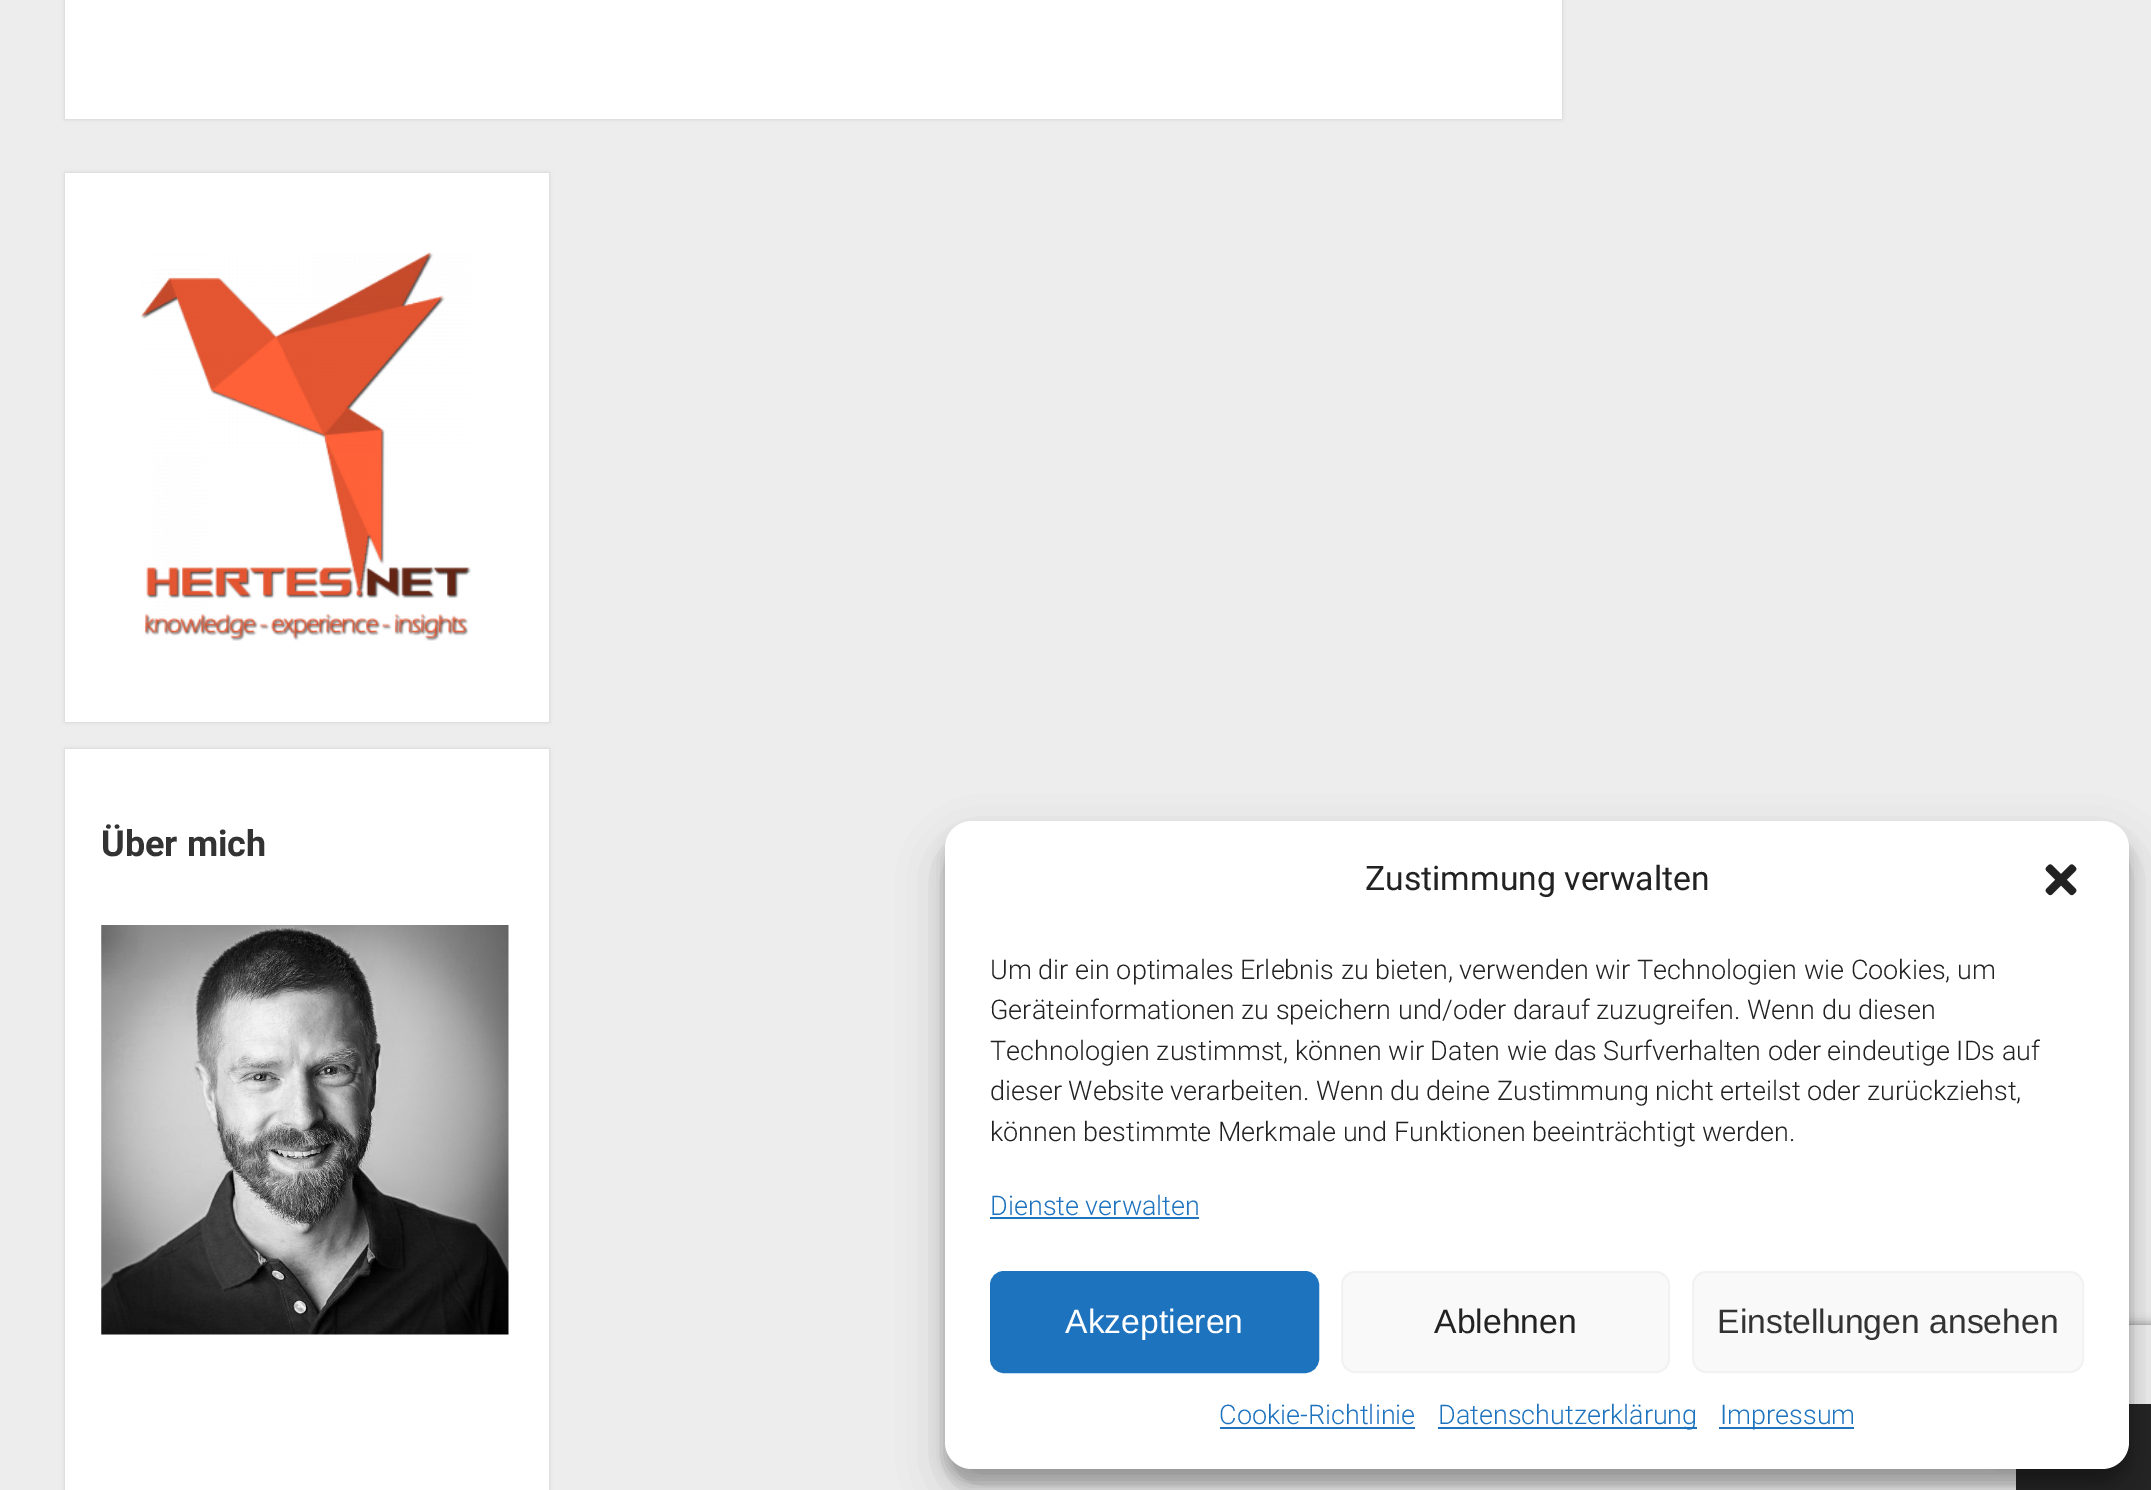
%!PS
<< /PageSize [2151 1490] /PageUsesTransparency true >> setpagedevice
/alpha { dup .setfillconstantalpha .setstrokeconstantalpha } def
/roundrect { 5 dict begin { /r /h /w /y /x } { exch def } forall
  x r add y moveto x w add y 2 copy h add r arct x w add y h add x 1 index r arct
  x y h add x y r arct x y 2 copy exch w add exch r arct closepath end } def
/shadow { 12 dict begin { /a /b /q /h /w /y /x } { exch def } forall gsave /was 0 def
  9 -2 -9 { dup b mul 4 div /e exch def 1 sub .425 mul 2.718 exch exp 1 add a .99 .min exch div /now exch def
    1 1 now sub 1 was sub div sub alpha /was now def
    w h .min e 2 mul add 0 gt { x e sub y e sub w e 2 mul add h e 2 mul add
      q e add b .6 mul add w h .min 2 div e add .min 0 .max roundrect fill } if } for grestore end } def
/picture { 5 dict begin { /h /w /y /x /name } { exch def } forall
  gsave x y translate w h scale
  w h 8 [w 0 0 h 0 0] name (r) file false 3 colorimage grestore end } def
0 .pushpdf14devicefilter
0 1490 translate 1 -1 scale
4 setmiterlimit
0.929 setgray
0 0 2151 1490 rectfill
0.227 setgray
65 -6 1497 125 0 2 0.2 shadow
1 setgray
65 0 1497 119 rectfill
0.227 setgray
65 173 484 549 0 2 0.2 shadow
1 setgray
65 173 484 549 rectfill
(img1.rgb) 141 252 330 389 picture
0.227 setgray
65 749 484 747 0 2 0.2 shadow
1 setgray
65 749 484 741 rectfill
/Roboto-Bold [36 0 0 -36 0 0] selectfont
0.2 setgray
101 856 moveto (Über mich) show
(img2.rgb) 101 925 408 410 picture
gsave
newpath 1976 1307 moveto 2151 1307 lineto 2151 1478 lineto 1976 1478 lineto closepath 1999 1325 moveto 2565 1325 lineto 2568 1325 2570 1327 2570 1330 curveto 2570 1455 lineto 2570 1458 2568 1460 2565 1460 curveto 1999 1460 lineto 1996 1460 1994 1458 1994 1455 curveto 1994 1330 lineto 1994 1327 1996 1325 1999 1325 curveto closepath eoclip newpath
0.502 setgray
1994 1325 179 135 5 5.5 1 shadow
grestore
0.141 setgray
2016 1404 135 86 rectfill
0 setgray
945 835 1184 648 27 7 0.23 shadow
945 844 1184 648 27 22.5 0.19 shadow
1 setgray
945 821 1184 648 27 roundrect fill
/Roboto-Regular [33.75 0 0 -33.75 0 0] selectfont
0.133 setgray
1365 890 moveto (Zustimmung verwalten) show
(img3.rgb) 2045 864 32 32 picture
/Roboto-Light [27 0 0 -27 0 0] selectfont
990 979 moveto (Um dir ein optimales Erlebnis zu bieten, verwenden wir Technologien wie Cookies, um) show
990 1019 moveto (Geräteinformationen zu speichern und/oder darauf zuzugreifen. Wenn du diesen) show
990 1060 moveto (Technologien zustimmst, können wir Daten wie das Surfverhalten oder eindeutige IDs auf) show
990 1100 moveto (dieser Website verarbeiten. Wenn du deine Zustimmung nicht erteilst oder zurückziehst,) show
990 1141 moveto (können bestimmte Merkmale und Funktionen beeinträchtigt werden.) show
0.118 0.451 0.745 setrgbcolor
990 1215 moveto (Dienste verwalten) show
990 1217 209 2 rectfill
991 1272 327 100 13 roundrect gsave fill grestore
2 setlinewidth
stroke
/LiberationSans-Regular [33.75 0 0 -33.75 0 0] selectfont
1 setgray
1065 1333 moveto (Akzeptieren) show
0.976 setgray
1342 1272 327 100 13 roundrect gsave fill grestore
0.949 setgray
stroke
0.133 setgray
1434 1333 moveto (Ablehnen) show
0.976 setgray
1693 1272 390 100 13 roundrect gsave fill grestore
0.949 setgray
stroke
0.2 setgray
1717 1333 moveto (Einstellungen ansehen) show
/Roboto-Light [27 0 0 -27 0 0] selectfont
0.118 0.451 0.745 setrgbcolor
1219 1424 moveto (Cookie-Richtlinie) show
1220 1427 195 2 rectfill
1438 1427 259 2 rectfill
1438 1424 moveto (Datenschutzerklärung) show
1719 1427 135 2 rectfill
1720 1424 moveto (Impressum) show
.poppdf14devicefilter showpage
